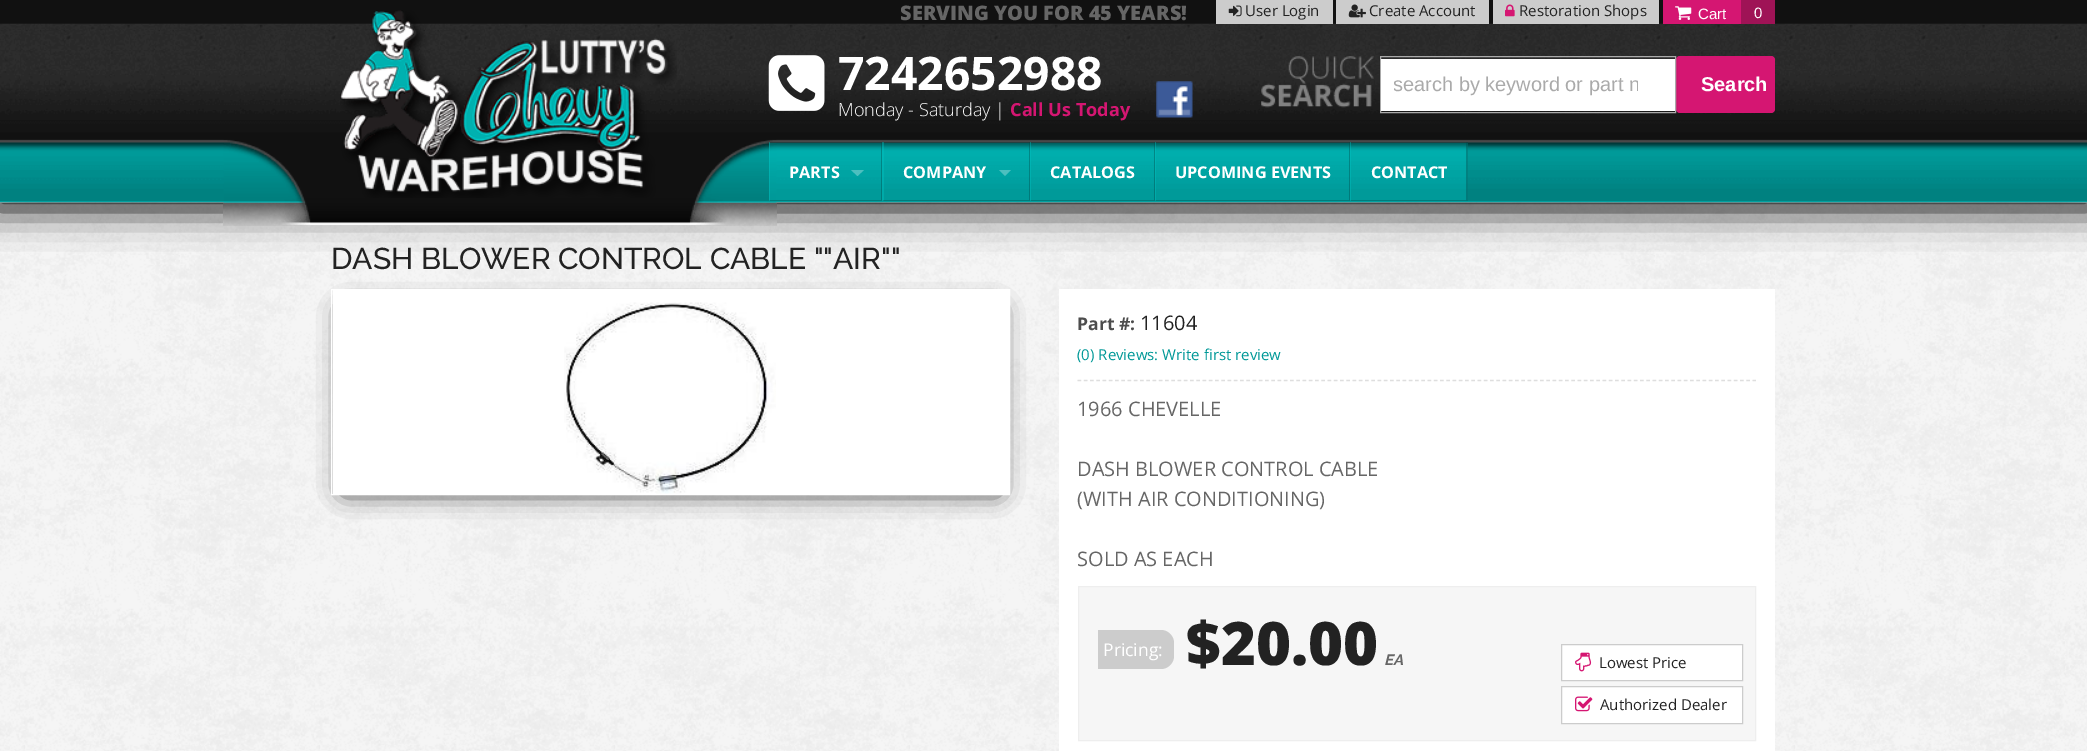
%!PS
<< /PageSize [2087 751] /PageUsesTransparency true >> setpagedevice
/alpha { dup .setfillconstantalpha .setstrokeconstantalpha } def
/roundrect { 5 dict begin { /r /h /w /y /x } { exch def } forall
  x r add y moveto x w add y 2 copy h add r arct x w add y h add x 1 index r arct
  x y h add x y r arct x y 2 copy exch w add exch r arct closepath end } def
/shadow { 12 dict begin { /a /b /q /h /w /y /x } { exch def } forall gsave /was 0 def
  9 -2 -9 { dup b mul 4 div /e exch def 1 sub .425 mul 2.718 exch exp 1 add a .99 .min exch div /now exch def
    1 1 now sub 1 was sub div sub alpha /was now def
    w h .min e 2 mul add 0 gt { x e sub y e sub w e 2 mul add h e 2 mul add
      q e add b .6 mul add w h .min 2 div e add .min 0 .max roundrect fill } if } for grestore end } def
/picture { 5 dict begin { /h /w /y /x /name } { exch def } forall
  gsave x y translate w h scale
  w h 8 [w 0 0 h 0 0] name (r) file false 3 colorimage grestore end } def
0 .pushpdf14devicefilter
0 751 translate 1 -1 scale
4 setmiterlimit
1 setgray
0 0 2087 751 rectfill
(img1.rgb) 0 202 2087 549 picture
0 setgray
-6 -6 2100 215 0 19 1 shadow
(img2.rgb) 0 0 2087 203 picture
(img4.rgb) 223 139 554 87 picture
(img3.rgb) 340 10 337 188 picture
/OpenSans-ExtraBold [20 0 0 -20 0 0] selectfont
0.4 setgray
900 20 moveto (SERVING YOU FOR 45 YEARS!) show
0.8 setgray
1216 0 117 24 rectfill
(img5.rgb) 1228 5 14 12 picture
/OpenSans-Regular [15 0 0 -15 0 0] selectfont
0.133 setgray
1245 16 moveto (User Login) show
0.8 setgray
1336 0 153 24 rectfill
(img6.rgb) 1348 4 18 14 picture
0.133 setgray
1369 16 moveto (Create Account) show
0.8 setgray
1493 0 166 24 rectfill
(img7.rgb) 1505 4 10 13 picture
0.133 setgray
1519 16 moveto (Restoration Shops) show
0.835 0.086 0.447 setrgbcolor
1663 0 78 24 rectfill
(img8.rgb) 1675 6 17 14 picture
/LiberationSans-Regular [15 0 0 -15 0 0] selectfont
1 setgray
1698 19 moveto (Cart) show
0.624 0.075 0.337 setrgbcolor
1741 0 34 24 rectfill
1 setgray
1754 18 moveto (0) show
(img9.rgb) 768 55 57 56 picture
/OpenSans-Bold [46.25 0 0 -46.25 0 0] selectfont
838 90 moveto (7242652988) show
/OpenSans-Light [18.1 0 0 -18.1 0 0] selectfont
838 116 moveto (Monday - Saturday |) show
/OpenSans-Bold [18.1 0 0 -18.1 0 0] selectfont
0.835 0.086 0.447 setrgbcolor
1010 116 moveto (Call Us Today) show
(img10.rgb) 1156 81 37 37 picture
(img11.rgb) 1261 56 113 52 picture
1676 56 99 57 4 roundrect fill
0.04 alpha
0 setgray
newpath 1379 56 moveto 1379 115 lineto 1678 115 lineto 1678 56 lineto closepath 1380 56 moveto 1380 112 lineto 1676 112 lineto 1676 56 lineto closepath eofill
1 alpha
0.667 setgray
1380.5 56.5 295 56 rectstroke
1 setgray
1381 59 294 52 rectfill
gsave
1394 74 244 22 rectclip
/LiberationSans-Regular [20 0 0 -20 0 0] selectfont
0.667 setgray
1393 91 moveto (search by keyword or part n) show
grestore
/LiberationSans-Bold [20 0 0 -20 0 0] selectfont
1701 91 moveto (Search) show
0.2 alpha
0 1 1 setrgbcolor
769 143 114 58 rectfill
0.36 alpha
0.008 0.259 0.259 setrgbcolor
newpath 882 142 moveto 882 201 lineto 881 200 lineto 881 142 lineto closepath fill
newpath 882 201 moveto 769 201 lineto 770 200 lineto 881 200 lineto closepath fill
0 0.773 0.769 setrgbcolor
newpath 769 201 moveto 769 142 lineto 770 142 lineto 770 200 lineto closepath fill
/OpenSans-Bold [16.25 0 0 -16.25 0 0] selectfont
1 alpha
1 setgray
789 178 moveto (PARTS) show
0.302 0.749 0.749 setrgbcolor
newpath 851 170 moveto 864 170 lineto 857.5 176 lineto closepath fill
0.2 alpha
0 1 1 setrgbcolor
883 143 147 58 rectfill
0.36 alpha
0.008 0.259 0.259 setrgbcolor
newpath 1030 142 moveto 1030 201 lineto 1029 200 lineto 1029 142 lineto closepath fill
newpath 1030 201 moveto 882 201 lineto 884 200 lineto 1029 200 lineto closepath fill
0 0.773 0.769 setrgbcolor
newpath 882 201 moveto 882 142 lineto 884 142 lineto 884 200 lineto closepath fill
1 alpha
1 setgray
903 178 moveto (COMPANY) show
0.302 0.749 0.749 setrgbcolor
newpath 999 170 moveto 1011 170 lineto 1005 176 lineto closepath fill
0.2 alpha
0 1 1 setrgbcolor
1030 143 125 58 rectfill
0.36 alpha
0.008 0.259 0.259 setrgbcolor
newpath 1155 142 moveto 1155 201 lineto 1154 200 lineto 1154 142 lineto closepath fill
newpath 1155 201 moveto 1030 201 lineto 1031 200 lineto 1154 200 lineto closepath fill
0 0.773 0.769 setrgbcolor
newpath 1030 201 moveto 1030 142 lineto 1031 142 lineto 1031 200 lineto closepath fill
1 alpha
1 setgray
1050 178 moveto (CATALOGS) show
0.2 alpha
0 1 1 setrgbcolor
1155 143 195 58 rectfill
0.36 alpha
0.008 0.259 0.259 setrgbcolor
newpath 1350 142 moveto 1350 201 lineto 1349 200 lineto 1349 142 lineto closepath fill
newpath 1350 201 moveto 1155 201 lineto 1156 200 lineto 1349 200 lineto closepath fill
0 0.773 0.769 setrgbcolor
newpath 1155 201 moveto 1155 142 lineto 1156 142 lineto 1156 200 lineto closepath fill
1 alpha
1 setgray
1175 178 moveto (UPCOMING EVENTS) show
0.2 alpha
0 1 1 setrgbcolor
1350 143 118 58 rectfill
0.36 alpha
0.008 0.259 0.259 setrgbcolor
newpath 1468 142 moveto 1468 201 lineto 1466 200 lineto 1466 142 lineto closepath fill
newpath 1468 201 moveto 1350 201 lineto 1351 200 lineto 1466 200 lineto closepath fill
0 0.773 0.769 setrgbcolor
newpath 1350 201 moveto 1350 142 lineto 1351 142 lineto 1351 200 lineto closepath fill
1 alpha
1 setgray
1371 178 moveto (CONTACT) show
/Raleway-Medium [30 0 0 -30 0 0] selectfont
0.133 setgray
331 269 moveto (DASH BLOWER CONTROL CABLE ""AIR"") show
0 setgray
344 310 654 181 0 12.5 1 shadow
1 setgray
331.5 289.5 678 205 rectstroke
333 290 676 204 rectfill
(img12.rgb) 564 302 212 192 picture
1059 289 716 462 rectfill
/OpenSans-Bold [17.5 0 0 -17.5 0 0] selectfont
0.302 setgray
1077 330 moveto (Part #:) show
/OpenSans-Regular [20 0 0 -20 0 0] selectfont
0.133 setgray
1140 330 moveto (11604) show
/OpenSans-Regular [15 0 0 -15 0 0] selectfont
0 0.596 0.592 setrgbcolor
1077 360 moveto (\(0\) Reviews: Write first review) show
0.871 setgray
1.2 setlinewidth
[3.75 2.5] 0 setdash
newpath 1077.5 380.5 moveto 1756 380.5 lineto stroke
/OpenSans-Regular [20 0 0 -20 0 0] selectfont
0.4 setgray
1077 416 moveto (1966 CHEVELLE) show
1077 476 moveto (DASH BLOWER CONTROL CABLE) show
1077 506 moveto (\(WITH AIR CONDITIONING\)) show
1077 566 moveto (SOLD AS EACH) show
0.965 setgray
newpath 1078.5 586.5 moveto 1755.5 586.5 lineto 1755.5 740.5 lineto 1078.5 740.5 lineto closepath gsave fill grestore
0.933 setgray
1 setlinewidth
[] 0 setdash
stroke
0.8 setgray
newpath 1098 630 moveto 1161 630 lineto 1168 630 1174 636 1174 643 curveto 1174 656 lineto 1174 663 1168 669 1161 669 curveto 1098 669 lineto closepath fill
/OpenSans-Regular [17.5 0 0 -17.5 0 0] selectfont
1 setgray
1103 656 moveto (Pricing:) show
/OpenSans-ExtraBold [60 0 0 -60 0 0] selectfont
0.133 setgray
1186 665 moveto ($20.00) show
/Raleway-BoldItalic [15 0 0 -15 0 0] selectfont
0.4 setgray
1384 665 moveto (EA) show
1 setgray
newpath 1561.5 644.5 moveto 1742.5 644.5 lineto 1742.5 680.5 lineto 1561.5 680.5 lineto closepath gsave fill grestore
0.8 setgray
stroke
(img13.rgb) 1575 652 17 20 picture
/OpenSans-Regular [15 0 0 -15 0 0] selectfont
0.133 setgray
1599 668 moveto (Lowest Price) show
1 setgray
newpath 1561.5 686.5 moveto 1742.5 686.5 lineto 1742.5 723.5 lineto 1561.5 723.5 lineto closepath gsave fill grestore
0.8 setgray
stroke
(img14.rgb) 1575 696 18 16 picture
0.133 setgray
1600 710 moveto (Authorized Dealer) show
.poppdf14devicefilter showpage
